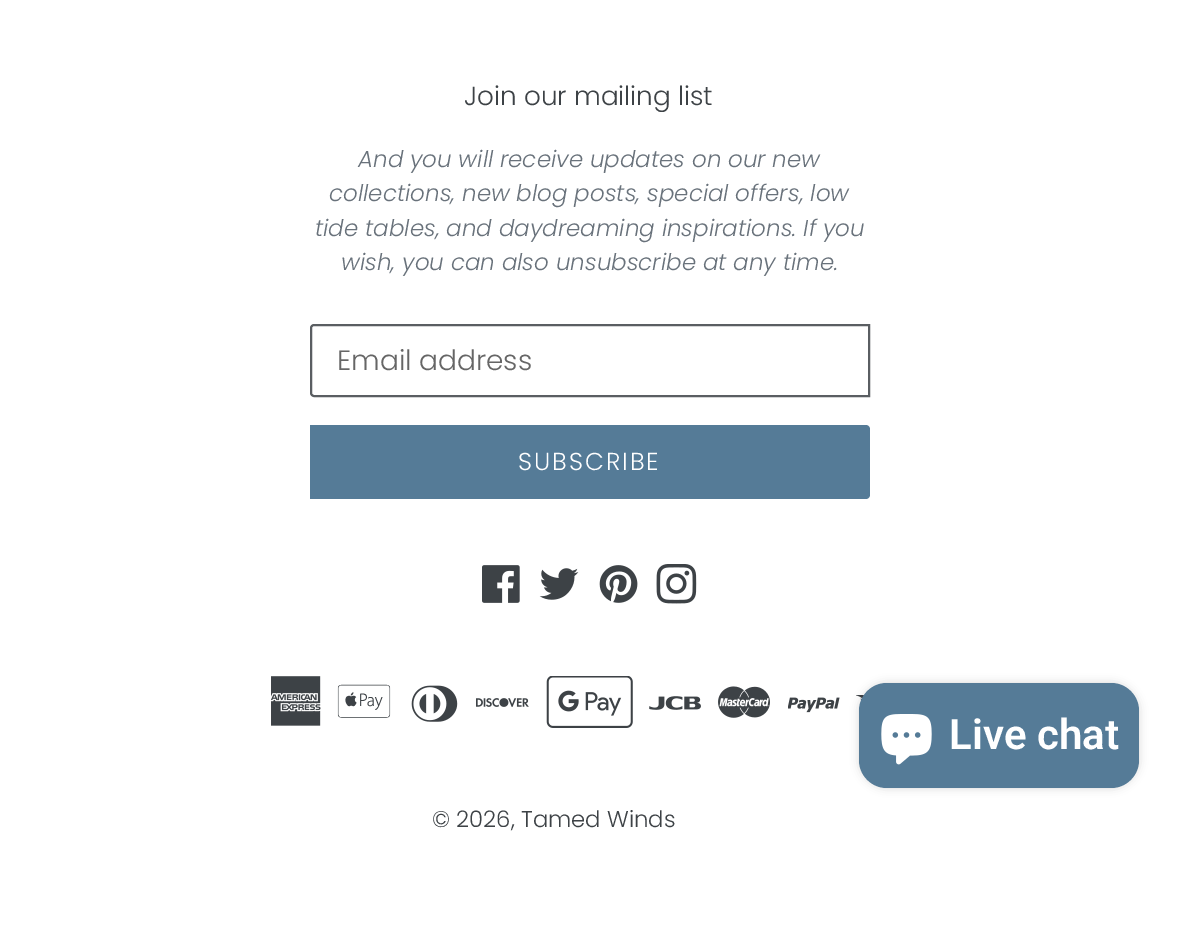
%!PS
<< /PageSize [1177 935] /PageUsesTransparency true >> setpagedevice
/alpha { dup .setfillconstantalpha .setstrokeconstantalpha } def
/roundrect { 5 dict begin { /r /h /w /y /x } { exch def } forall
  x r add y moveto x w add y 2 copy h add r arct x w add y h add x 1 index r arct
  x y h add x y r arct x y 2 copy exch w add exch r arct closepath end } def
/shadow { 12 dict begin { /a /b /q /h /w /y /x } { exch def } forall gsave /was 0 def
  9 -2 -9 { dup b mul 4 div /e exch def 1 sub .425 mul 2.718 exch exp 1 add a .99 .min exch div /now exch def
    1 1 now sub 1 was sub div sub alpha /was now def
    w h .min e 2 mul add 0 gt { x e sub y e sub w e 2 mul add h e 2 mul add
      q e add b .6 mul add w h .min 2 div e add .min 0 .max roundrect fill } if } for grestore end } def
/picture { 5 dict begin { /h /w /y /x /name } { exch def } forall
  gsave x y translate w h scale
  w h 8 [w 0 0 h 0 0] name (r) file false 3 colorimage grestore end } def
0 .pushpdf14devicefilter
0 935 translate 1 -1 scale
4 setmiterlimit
1 setgray
0 0 1177 935 rectfill
/Poppins-Light [26.25 0 0 -26.25 0 0] selectfont
0.239 0.259 0.275 setrgbcolor
464 105 moveto (Join our mailing list) show
/Poppins-LightItalic [23 0 0 -23 0 0] selectfont
0.412 0.447 0.482 setrgbcolor
358 167 moveto (And you will receive updates on our new) show
329 201 moveto (collections, new blog posts, special offers, low) show
315 236 moveto (tide tables, and daydreaming inspirations. If you) show
341 270 moveto (wish, you can also unsubscribe at any time.) show
0.353 0.369 0.384 setrgbcolor
2 setlinewidth
newpath 314 325 moveto 869 325 lineto 869 396 lineto 314 396 lineto 312.5 396 311 394.5 311 393 curveto 311 328 lineto 311 326.5 312.5 325 314 325 curveto closepath stroke
/Poppins-Light [28 0 0 -28 0 0] selectfont
0.4 setgray
337 370 moveto (Email address) show
0.333 0.482 0.592 setrgbcolor
newpath 310 425 moveto 866 425 lineto 868 425 870 427 870 429 curveto 870 495 lineto 870 497 868 499 866 499 curveto 310 499 lineto closepath fill
/Poppins-Light [24.5 0 0 -24.5 0 0] selectfont
1 setgray
518 470 moveto 2 0 (SUBSCRIBE) ashow
(img1.rgb) 482 565 38 38 picture
(img2.rgb) 539 568 40 32 picture
(img3.rgb) 599 565 39 38 picture
(img4.rgb) 656 564 41 40 picture
(img5.rgb) 271 676 50 50 picture
(img6.rgb) 337 684 54 34 picture
(img7.rgb) 411 685 47 37 picture
(img8.rgb) 476 698 53 9 picture
(img9.rgb) 546 676 87 52 picture
(img10.rgb) 649 696 52 14 picture
(img11.rgb) 718 686 52 32 picture
(img12.rgb) 788 697 52 16 picture
(img13.rgb) 856 695 8 6 picture
/Poppins-Light [22.75 0 0 -22.75 0 0] selectfont
0.239 0.259 0.275 setrgbcolor
432 827 moveto (© 2026, Tamed Winds) show
0 setgray
859 683 280 105 28 4.5 0.15 shadow
0.333 0.482 0.592 setrgbcolor
859 683 280 105 28 roundrect fill
(img14.rgb) 881 714 51 51 picture
/Roboto-SemiBold [42 0 0 -42 0 0] selectfont
1 setgray
949 749 moveto (Live chat) show
.poppdf14devicefilter showpage
